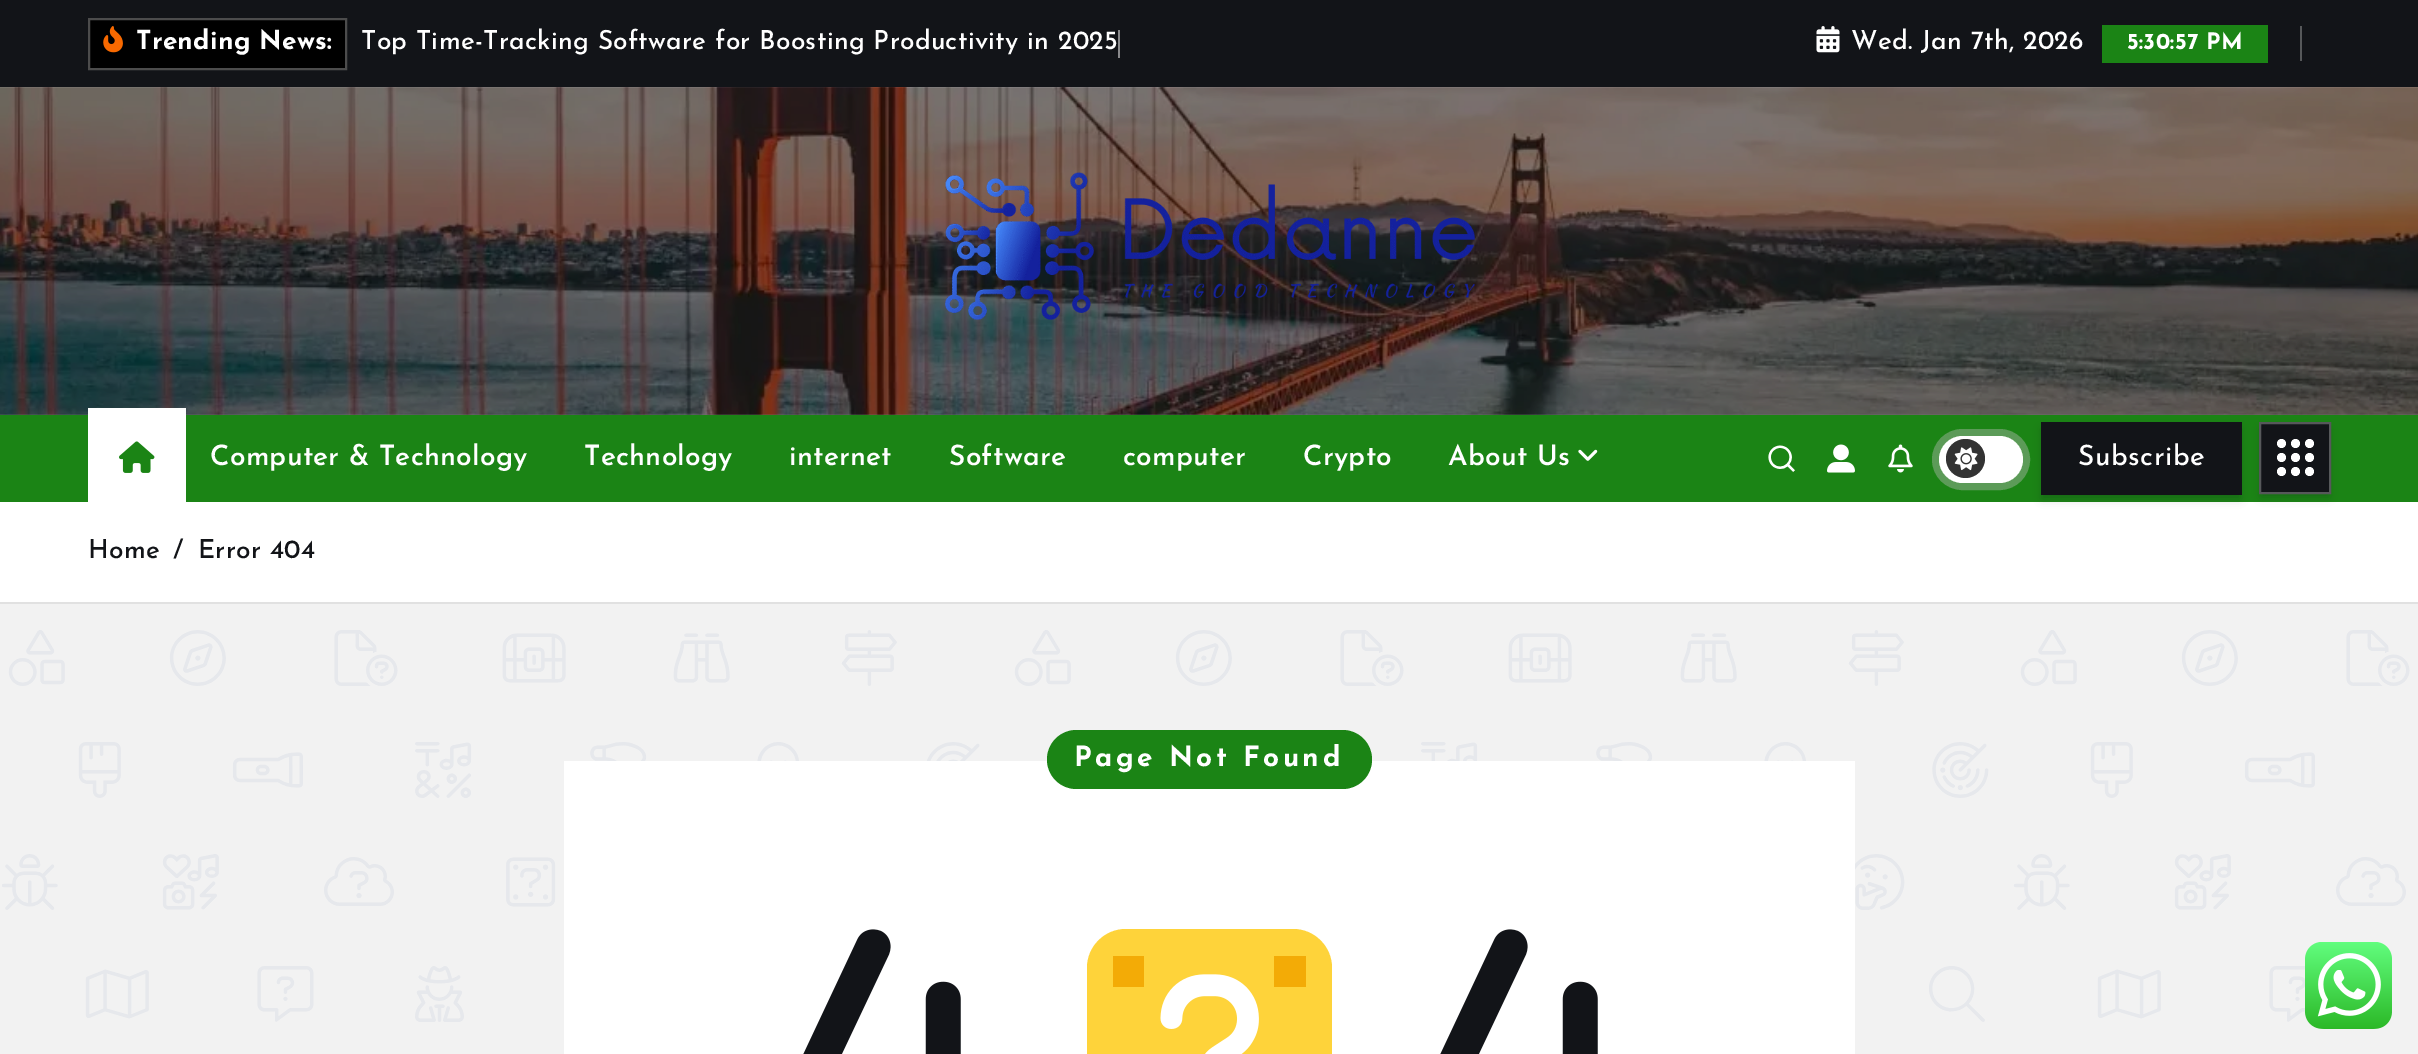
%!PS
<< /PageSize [2418 1054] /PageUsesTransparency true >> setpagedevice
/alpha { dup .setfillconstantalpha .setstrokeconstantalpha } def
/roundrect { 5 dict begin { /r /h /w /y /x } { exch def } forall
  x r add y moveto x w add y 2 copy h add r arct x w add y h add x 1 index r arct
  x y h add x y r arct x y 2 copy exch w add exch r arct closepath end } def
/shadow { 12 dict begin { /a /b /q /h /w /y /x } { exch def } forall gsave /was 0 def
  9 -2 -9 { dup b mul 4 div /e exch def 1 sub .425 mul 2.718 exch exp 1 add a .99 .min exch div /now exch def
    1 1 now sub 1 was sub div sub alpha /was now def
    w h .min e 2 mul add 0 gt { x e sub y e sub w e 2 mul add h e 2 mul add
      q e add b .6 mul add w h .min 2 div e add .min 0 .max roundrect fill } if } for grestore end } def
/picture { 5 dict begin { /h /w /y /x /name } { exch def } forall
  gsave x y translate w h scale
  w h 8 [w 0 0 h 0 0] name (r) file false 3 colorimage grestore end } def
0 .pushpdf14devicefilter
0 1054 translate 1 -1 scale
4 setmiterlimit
1 setgray
0 0 2418 1054 rectfill
0.071 0.078 0.094 setrgbcolor
0 0 2418 88 rectfill
0 setgray
newpath 89 19 moveto 346 19 lineto 346 69 lineto 89 69 lineto closepath gsave fill grestore
0.298 setgray
2 setlinewidth
stroke
(img1.rgb) 103 26 20 27 picture
/JosefinSans-Bold [26.25 0 0 -26.25 0 0] selectfont
1 setgray
136 49 moveto 0.28 0 (Trending News:) ashow
/JosefinSans-Medium [26.25 0 0 -26.25 0 0] selectfont
361 49 moveto 0.28 0 (Top Time-Tracking Software for Boosting Productivity in 2025) ashow
0.541 0.541 0.549 setrgbcolor
1118 30 2 28 rectfill
(img2.rgb) 1816 26 24 27 picture
1 setgray
1851 49 moveto 0.28 0 (Wed. Jan 7th, 2026) ashow
0.106 0.518 0.082 setrgbcolor
2102 25 166 38 rectfill
/JosefinSans-Bold [22.75 0 0 -22.75 0 0] selectfont
1 setgray
2127 49 moveto 0.28 0 (5:30:57 PM) ashow
0.337 0.345 0.353 setrgbcolor
2300 26 2 35 rectfill
(img3.rgb) 0 87 2418 328 picture
(img4.rgb) 945 172 530 148 picture
0.106 0.518 0.082 setrgbcolor
0 415 2418 87 rectfill
1 setgray
88 408 98 94 rectfill
(img5.rgb) 119 441 36 32 picture
/JosefinSans-SemiBold [28 0 0 -28 0 0] selectfont
210 465 moveto 0.28 0 (Computer & Technology) ashow
584 465 moveto 0.28 0 (Technology) ashow
789 465 moveto 0.28 0 (internet) ashow
949 465 moveto 0.28 0 (Software) ashow
1123 465 moveto 0.28 0 (computer) ashow
1303 465 moveto 0.28 0 (Crypto) ashow
1448 465 moveto 0.28 0 (About Us) ashow
(img6.rgb) 1578 449 20 12 picture
(img7.rgb) 1768 445 27 27 picture
(img8.rgb) 1827 444 28 29 picture
(img9.rgb) 1888 444 25 29 picture
0.361 0.608 0.345 setrgbcolor
7 setlinewidth
1935.5 432.5 91 54 27 roundrect stroke
1 setgray
1939 436 84 47 23.5 roundrect fill
0.2 setgray
newpath 1965.5 458.5 19.5 0 360 arc closepath fill
(img10.rgb) 1954 447 24 24 picture
0.027 0.039 0.098 setrgbcolor
2042 429 198 70 0 4.5 0.2 shadow
0.071 0.078 0.094 setrgbcolor
2041 422 201 73 rectfill
/JosefinSans-Medium [28 0 0 -28 0 0] selectfont
1 setgray
2078 465 moveto 0.5 0 (Subscribe) ashow
0.027 0.039 0.098 setrgbcolor
2261 429 68 68 0 4.5 0.2 shadow
0.071 0.078 0.094 setrgbcolor
newpath 2260 423 moveto 2330 423 lineto 2330 493 lineto 2260 493 lineto closepath gsave fill grestore
0.337 0.345 0.353 setrgbcolor
2 setlinewidth
stroke
1 setgray
newpath 2281.5 443.5 4.5 0 360 arc closepath fill
newpath 2295.5 443.5 4.5 0 360 arc closepath fill
newpath 2309.5 443.5 4.5 0 360 arc closepath fill
newpath 2281.5 457.5 4.5 0 360 arc closepath fill
newpath 2295.5 457.5 4.5 0 360 arc closepath fill
newpath 2309.5 457.5 4.5 0 360 arc closepath fill
newpath 2281.5 471.5 4.5 0 360 arc closepath fill
newpath 2295.5 471.5 4.5 0 360 arc closepath fill
newpath 2309.5 471.5 4.5 0 360 arc closepath fill
0.882 setgray
newpath 0 602 moveto 0 604 lineto 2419 604 lineto 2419 504 lineto 2418 504 lineto 2418 602 lineto closepath fill
/JosefinSans-Medium [26.25 0 0 -26.25 0 0] selectfont
0.071 0.078 0.094 setrgbcolor
88 558 moveto 0.28 0 (Home) ashow
173 558 moveto 0.28 0 (/) ashow
198 558 moveto 0.28 0 (Error 404) ashow
0.949 setgray
0 604 2418 450 rectfill
(img11.rgb) 2 630 2408 392 picture
1 setgray
564 761 1291 293 rectfill
0.106 0.518 0.082 setrgbcolor
1047 730 325 59 29.5 roundrect fill
/JosefinSans-Bold [28 0 0 -28 0 0] selectfont
1 setgray
1074 766 moveto 3.5 0 (Page Not Found) ashow
(img12.rgb) 803 929 158 125 picture
0.996 0.827 0.227 setrgbcolor
1087 929 245 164 39 roundrect fill
gsave newpath 1113 956 moveto 1144 956 lineto 1144 987 lineto 1113 987 lineto closepath clip newpath 1128 971 translate 16 16 scale
<< /ShadingType 3 /ColorSpace /DeviceRGB /Coords [0 0 0 0 0 1] /Extend [true true] /Function << /FunctionType 2 /Domain [0 1] /C0 [0.953 0.671 0.024] /C1 [0.953 0.671 0.024] /N 1 >> >> shfill grestore
gsave newpath 1274 956 moveto 1306 956 lineto 1306 987 lineto 1274 987 lineto closepath clip newpath 1290 971 translate 16 16 scale
<< /ShadingType 3 /ColorSpace /DeviceRGB /Coords [0 0 0 0 0 1] /Extend [true true] /Function << /FunctionType 2 /Domain [0 1] /C0 [0.953 0.671 0.024] /C1 [0.953 0.671 0.024] /N 1 >> >> shfill grestore
(img13.rgb) 1160 974 99 80 picture
(img12.rgb) 1440 929 158 125 picture
(img14.rgb) 2305 942 87 87 picture
.poppdf14devicefilter showpage
